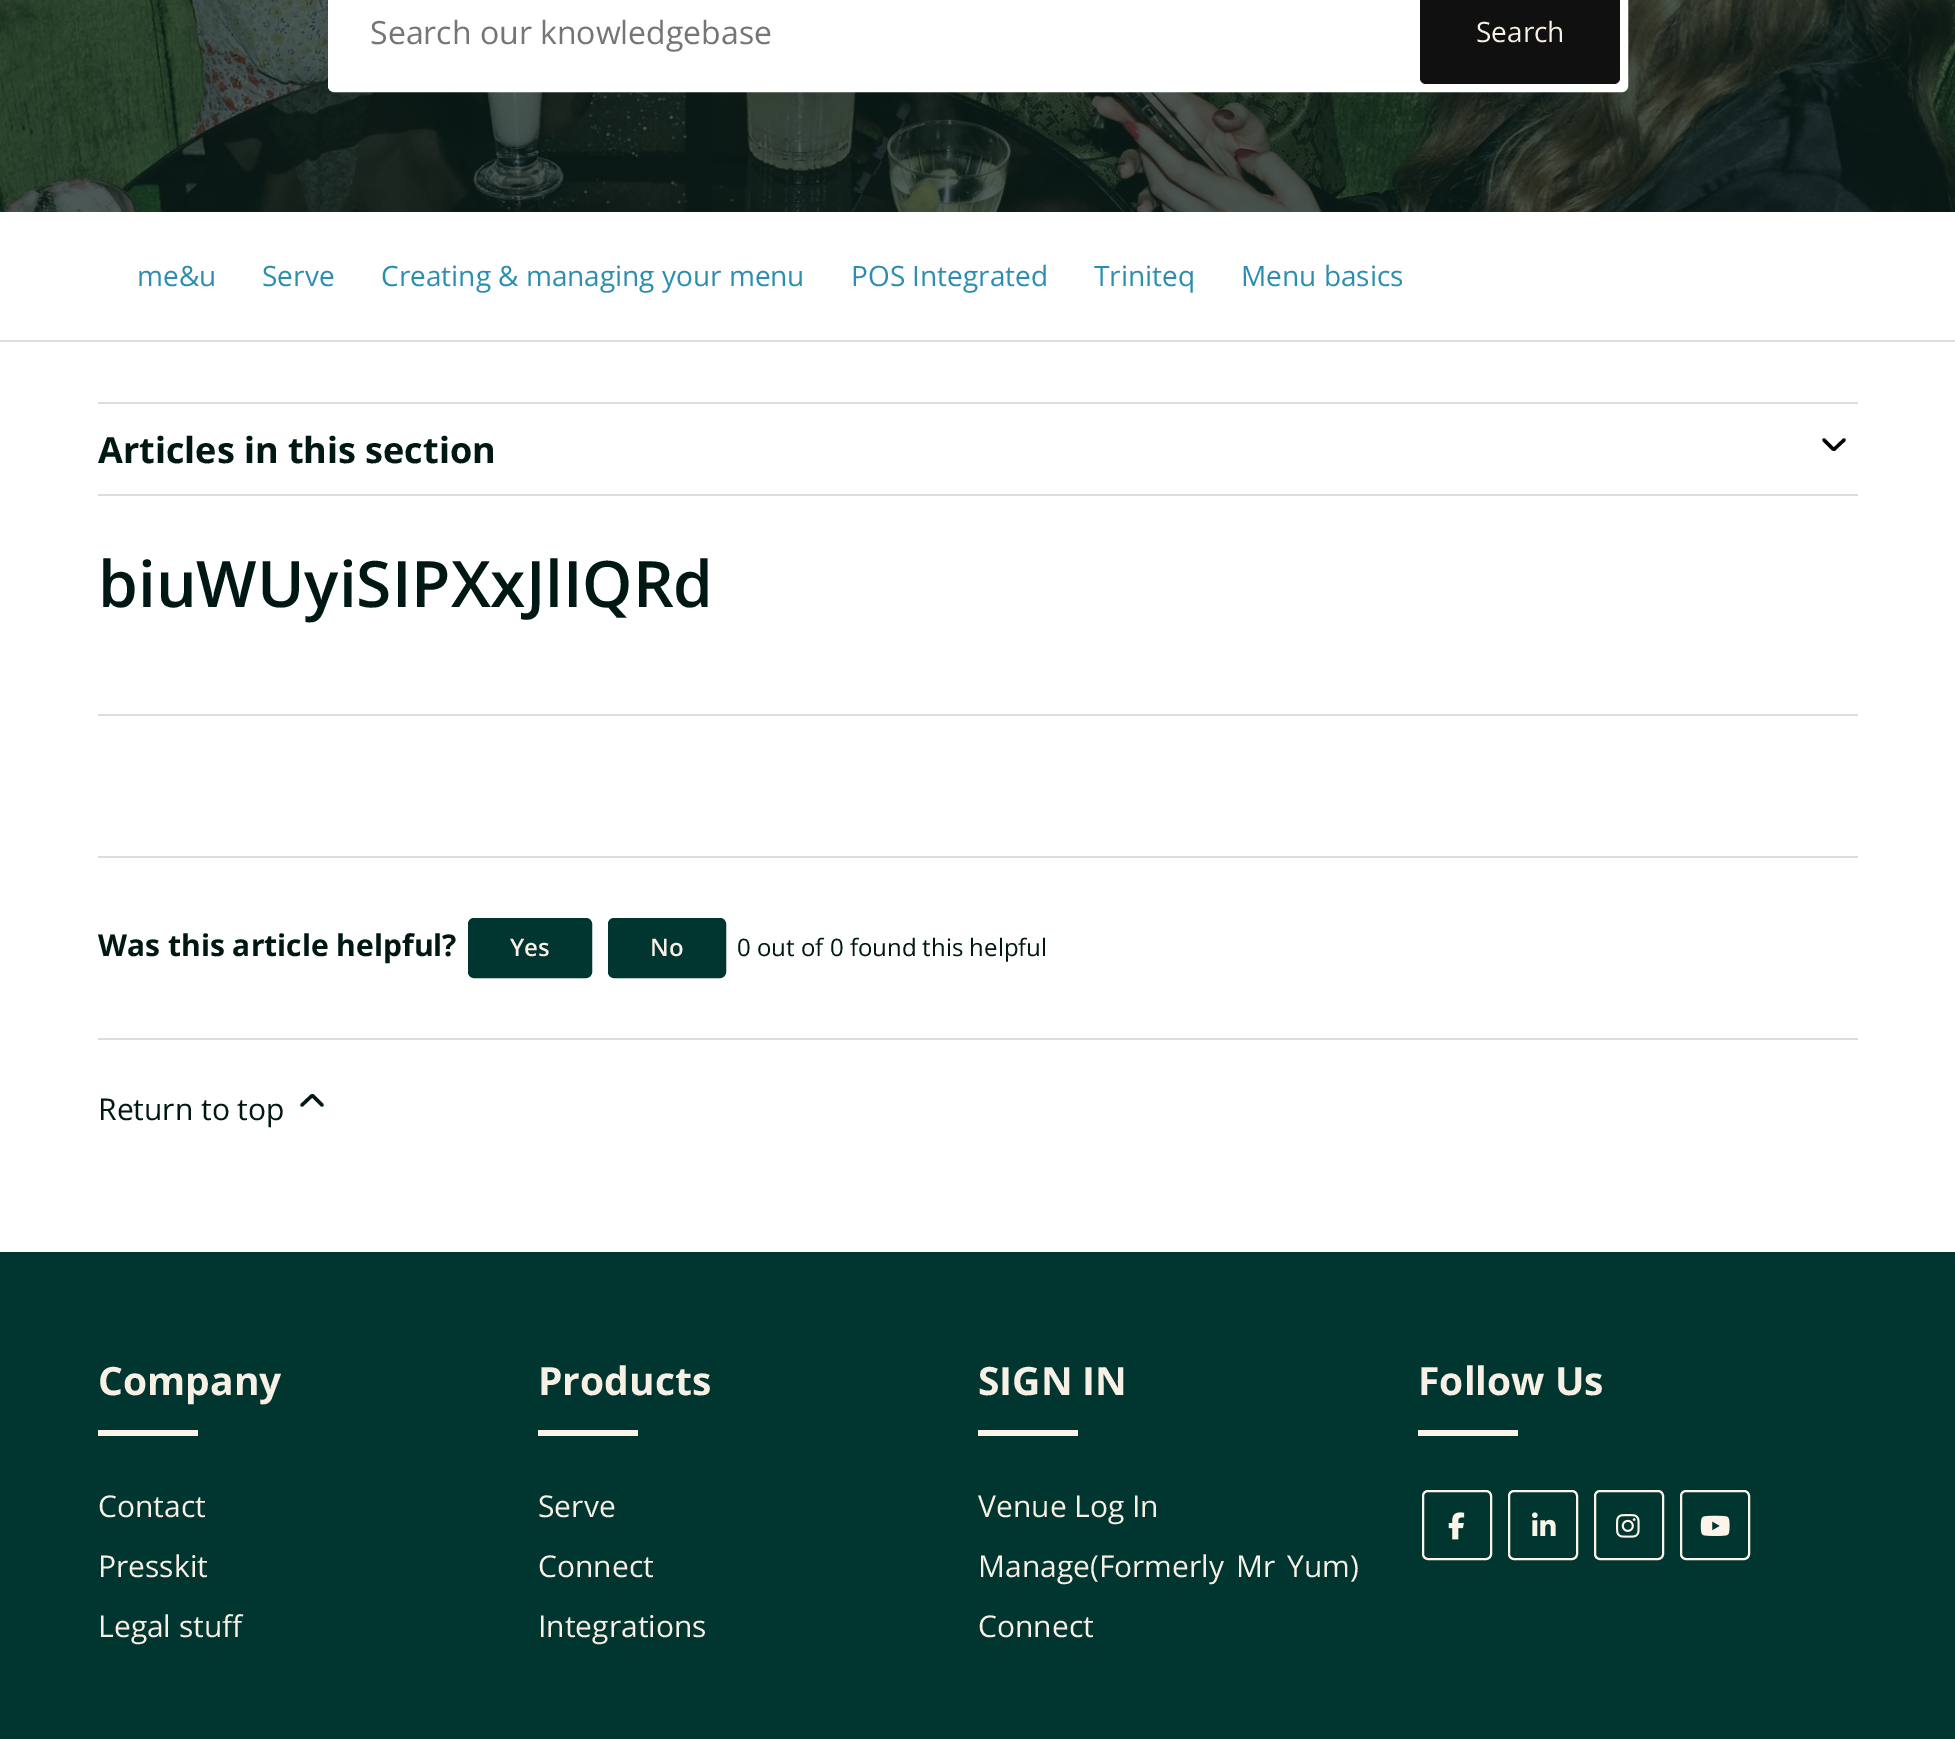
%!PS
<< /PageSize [1955 1739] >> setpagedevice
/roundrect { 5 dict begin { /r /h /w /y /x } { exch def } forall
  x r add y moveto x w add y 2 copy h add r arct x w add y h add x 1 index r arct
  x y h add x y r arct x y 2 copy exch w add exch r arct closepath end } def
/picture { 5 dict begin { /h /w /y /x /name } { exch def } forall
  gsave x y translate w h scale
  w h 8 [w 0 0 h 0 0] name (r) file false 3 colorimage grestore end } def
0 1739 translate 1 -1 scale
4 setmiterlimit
1 setgray
0 0 1955 1739 rectfill
(img1.rgb) 0 0 1955 212 picture
329 -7 1298 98 5 roundrect gsave fill grestore
2 setlinewidth
stroke
/OpenSans-Regular [32 0 0 -32 0 0] selectfont
0.459 setgray
370 44 moveto (Search our knowledgebase) show
0.063 setgray
1420 -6 200 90 6 roundrect fill
/OpenSans-Regular [28 0 0 -28 0 0] selectfont
0.976 0.941 0.898 setrgbcolor
1476 42 moveto (Search) show
0.867 setgray
0 340 1955 2 rectfill
0.169 0.557 0.694 setrgbcolor
137 286 moveto (me&u) show
262 286 moveto (Serve) show
381 286 moveto (Creating & managing your menu) show
851 286 moveto (POS Integrated) show
1094 286 moveto (Triniteq) show
1241 286 moveto (Menu basics) show
0.867 setgray
98 402 1760 2 rectfill
98 494 1760 2 rectfill
/OpenSans-Bold [36 0 0 -36 0 0] selectfont
0 0.094 0.078 setrgbcolor
98 463 moveto (Articles in this section) show
0 setgray
3.3 setlinewidth
1 setlinecap
newpath 1824 440 moveto 1832.5 448.5 lineto 1833.5 449.5 1834.5 449.5 1835 448.5 curveto 1844 440 lineto stroke
0.867 setgray
98 714 1760 2 rectfill
/OpenSans-SemiBold [64 0 0 -64 0 0] selectfont
0 0.094 0.078 setrgbcolor
98 607 moveto (biuWUyiSIPXxJlIQRd) show
0.867 setgray
98 856 1760 2 rectfill
/OpenSans-Bold [30 0 0 -30 0 0] selectfont
0 0.094 0.078 setrgbcolor
98 956 moveto (Was this article helpful?) show
0 0.212 0.184 setrgbcolor
469 919 122 58 5 roundrect gsave fill grestore
2 setlinewidth
0 setlinecap
stroke
/OpenSans-SemiBold [24 0 0 -24 0 0] selectfont
0.976 0.941 0.898 setrgbcolor
510 956 moveto (Yes) show
0 0.212 0.184 setrgbcolor
609 919 116 58 5 roundrect gsave fill grestore
stroke
0.976 0.941 0.898 setrgbcolor
650 956 moveto (No) show
/OpenSans-Regular [24 0 0 -24 0 0] selectfont
0 0.094 0.078 setrgbcolor
737 956 moveto (0 out of 0 found this helpful) show
0.867 setgray
98 1038 1760 2 rectfill
/OpenSans-Regular [30 0 0 -30 0 0] selectfont
0 0.094 0.078 setrgbcolor
98 1120 moveto (Return to top) show
3.3 setlinewidth
1 setlinecap
newpath 322 1105 moveto 313.5 1096.5 lineto 313 1095.5 312 1095.5 311 1096.5 curveto 302 1105 lineto stroke
0 0.212 0.184 setrgbcolor
0 1252 1955 487 rectfill
/OpenSans-Bold [39 0 0 -39 0 0] selectfont
0.976 0.941 0.898 setrgbcolor
98 1395 moveto (Company) show
0.988 0.957 0.91 setrgbcolor
98 1430 100 6 rectfill
/OpenSans-Regular [30 0 0 -30 0 0] selectfont
0.976 0.941 0.898 setrgbcolor
98 1517 moveto (Contact) show
98 1577 moveto (Presskit) show
98 1637 moveto (Legal stuff) show
/OpenSans-Bold [39 0 0 -39 0 0] selectfont
538 1395 moveto (Products) show
0.988 0.957 0.91 setrgbcolor
538 1430 100 6 rectfill
/OpenSans-Regular [30 0 0 -30 0 0] selectfont
0.976 0.941 0.898 setrgbcolor
538 1517 moveto (Serve) show
538 1577 moveto (Connect) show
538 1637 moveto (Integrations) show
/OpenSans-Bold [39 0 0 -39 0 0] selectfont
978 1395 moveto (SIGN IN) show
0.988 0.957 0.91 setrgbcolor
978 1430 100 6 rectfill
/OpenSans-Regular [30 0 0 -30 0 0] selectfont
0.976 0.941 0.898 setrgbcolor
978 1517 moveto (Venue Log In) show
978 1577 moveto 4 0 32 (Manage\(Formerly Mr Yum\)) widthshow
978 1637 moveto (Connect) show
/OpenSans-Bold [39 0 0 -39 0 0] selectfont
1418 1395 moveto (Follow Us) show
0.988 0.957 0.91 setrgbcolor
1418 1430 100 6 rectfill
2 setlinewidth
0 setlinecap
1423 1491 68 68 5 roundrect stroke
(img2.rgb) 1448 1512 17 28 picture
1509 1491 68 68 5 roundrect stroke
(img3.rgb) 1532 1512 24 24 picture
1595 1491 68 68 5 roundrect stroke
(img4.rgb) 1616 1514 24 24 picture
1681 1491 68 68 5 roundrect stroke
(img5.rgb) 1700 1515 30 21 picture
showpage
